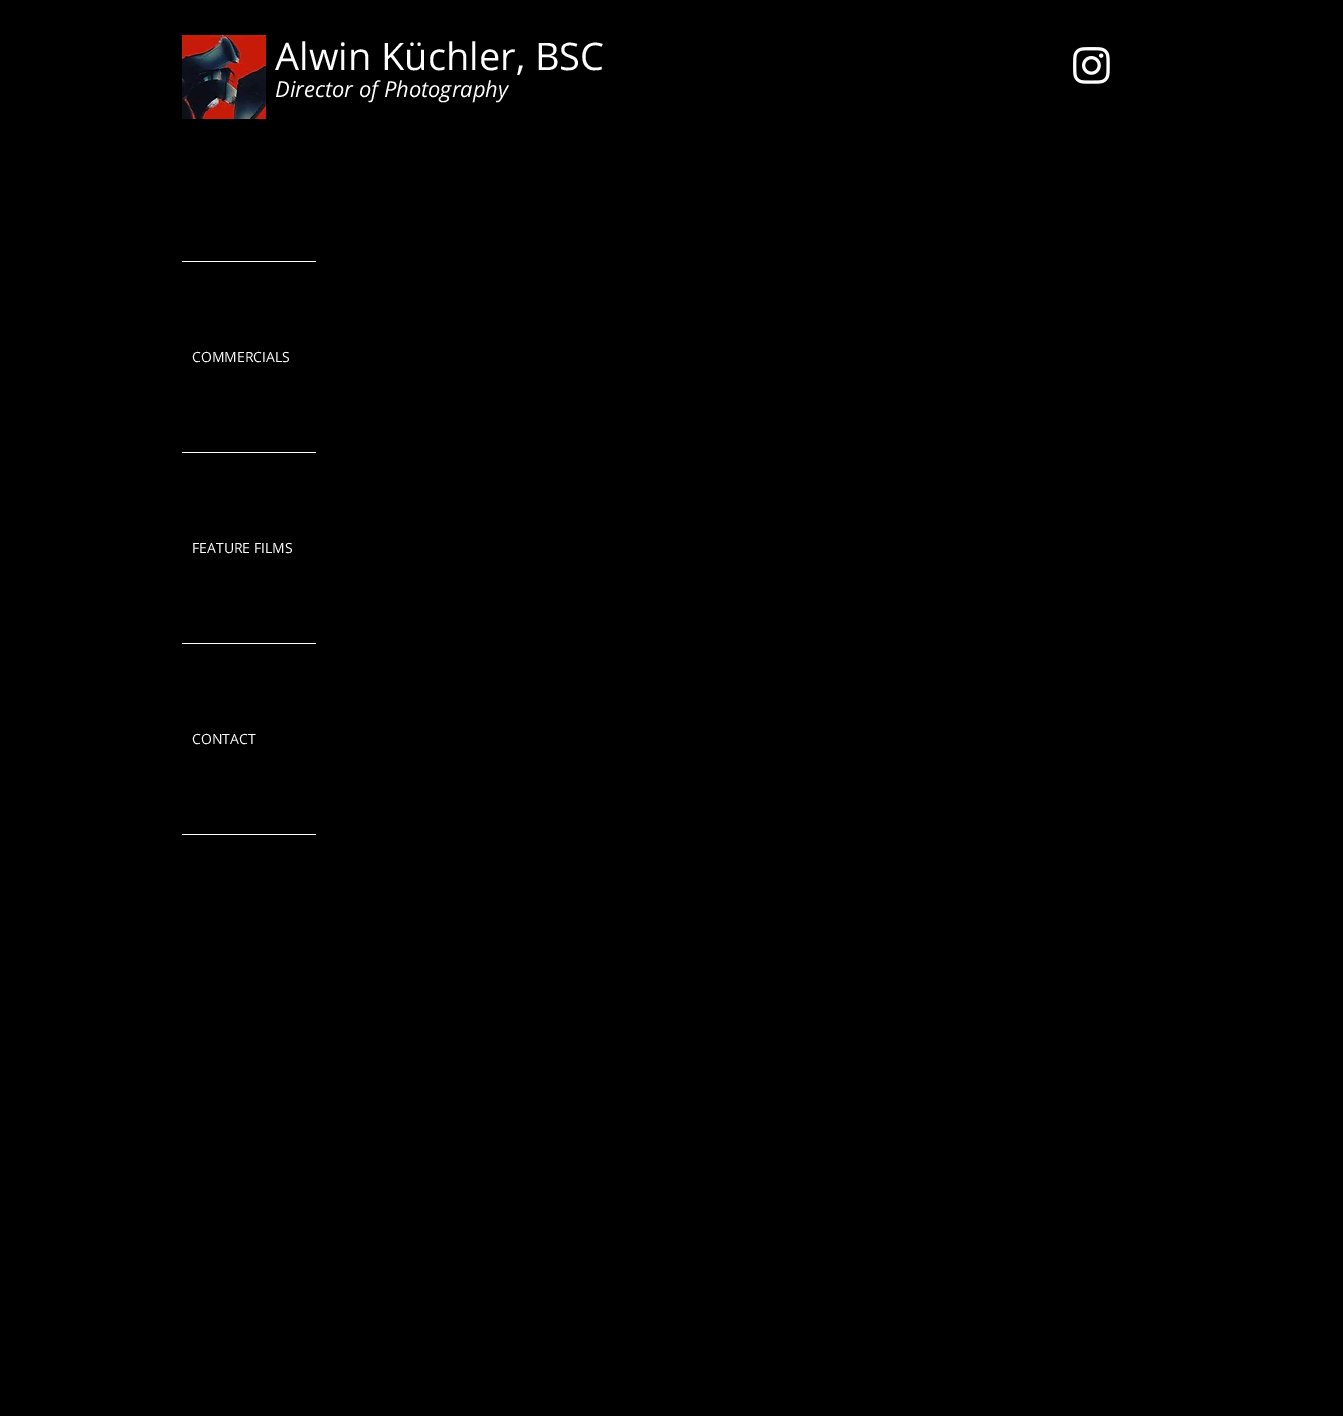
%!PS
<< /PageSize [1343 1416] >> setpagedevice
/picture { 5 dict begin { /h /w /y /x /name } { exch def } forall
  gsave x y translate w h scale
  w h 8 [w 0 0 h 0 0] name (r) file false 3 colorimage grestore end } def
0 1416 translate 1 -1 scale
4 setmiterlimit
0 setgray
0 0 1343 1416 rectfill
(img1.rgb) 182 35 84 84 picture
/OpenSans-Regular [38 0 0 -38 0 0] selectfont
1 setgray
275 70 moveto (Alwin Küchler, BSC) show
(img2.rgb) 1073 47 37 37 picture
/OpenSans-Italic [22 0 0 -22 0 0] selectfont
275 97 moveto (Director of Photography) show
182 261 134 1 rectfill
182 834 134 1 rectfill
182 452 134 1 rectfill
/OpenSans-Regular [14 0 0 -14 0 0] selectfont
192 362 moveto (COMMERCIALS) show
182 643 134 1 rectfill
192 553 moveto (FEATURE FILMS) show
192 744 moveto (CONTACT) show
showpage
